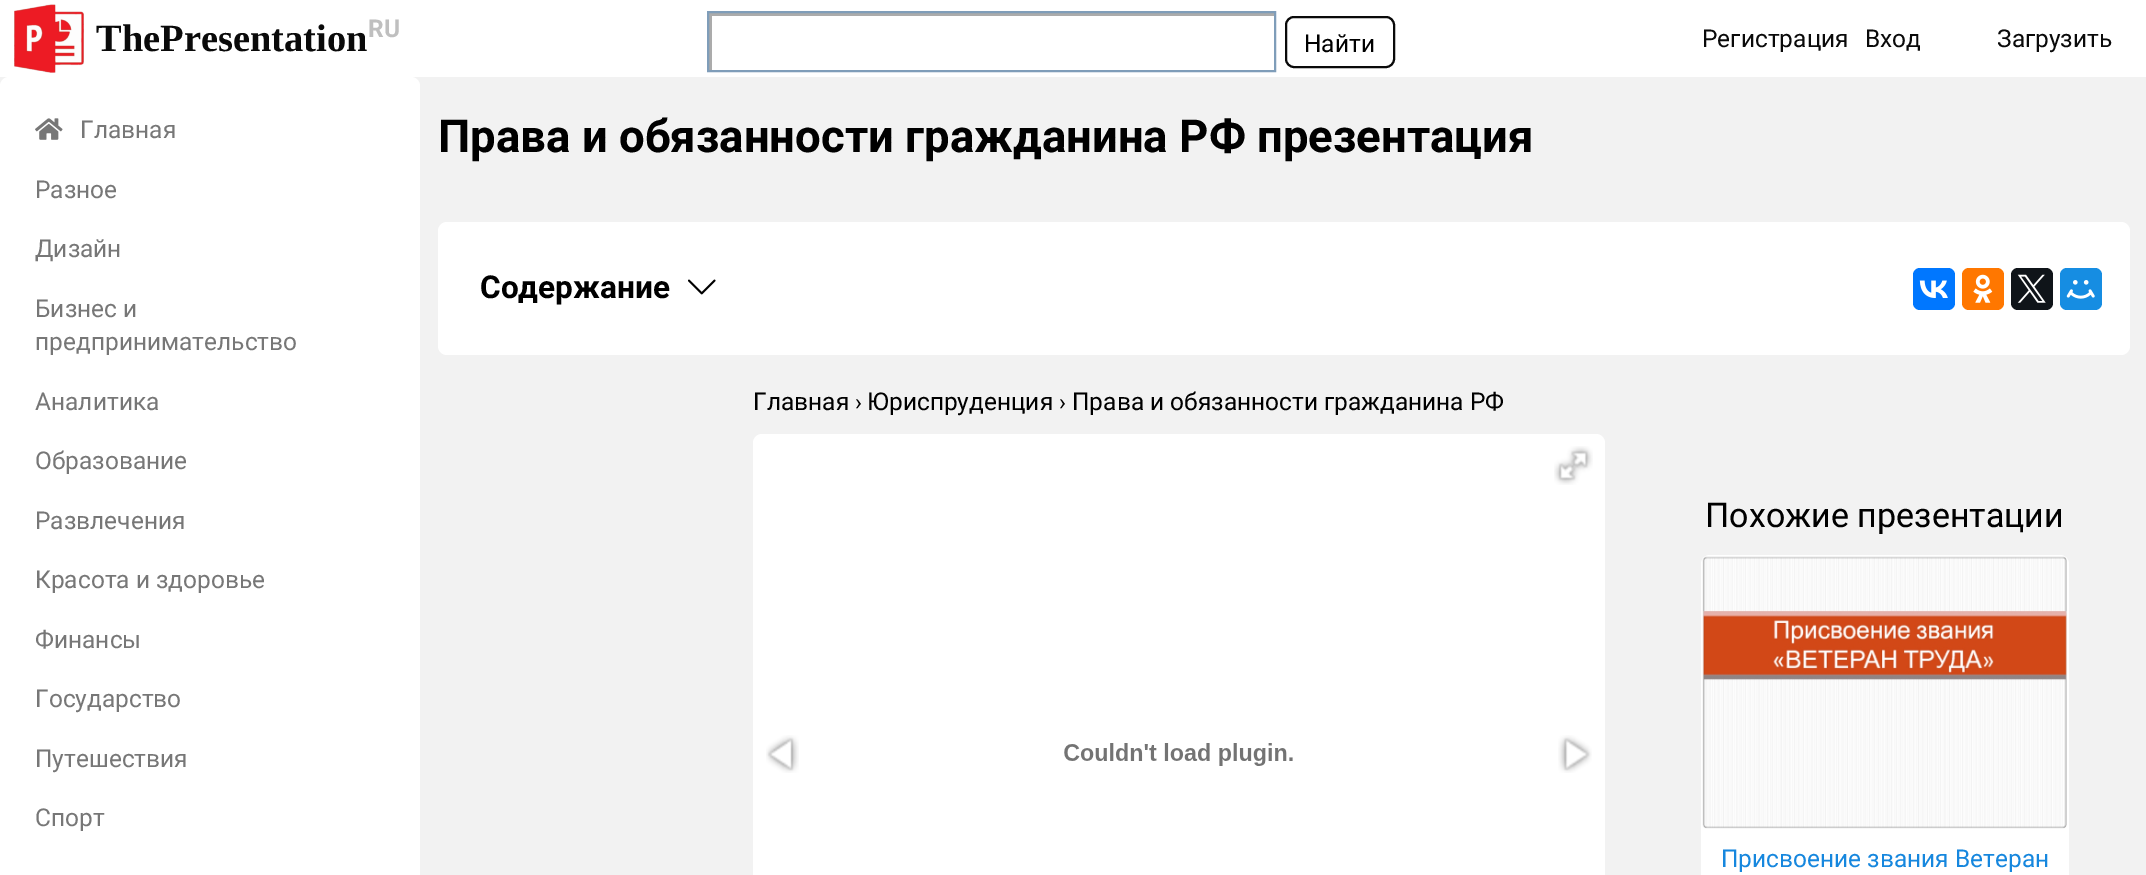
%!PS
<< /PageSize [2146 875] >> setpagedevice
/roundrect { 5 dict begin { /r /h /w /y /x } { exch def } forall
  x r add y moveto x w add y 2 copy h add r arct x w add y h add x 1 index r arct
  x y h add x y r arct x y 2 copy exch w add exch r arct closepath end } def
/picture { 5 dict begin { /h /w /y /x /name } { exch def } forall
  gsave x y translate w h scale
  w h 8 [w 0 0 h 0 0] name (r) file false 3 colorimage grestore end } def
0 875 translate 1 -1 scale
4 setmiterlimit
0.949 setgray
0 0 2146 875 rectfill
1 setgray
0 0 2146 77 rectfill
(img1.rgb) 14 4 70 69 picture
/LiberationSerif-Bold [38.5 0 0 -38.5 0 0] selectfont
0.039 setgray
96 51 moveto (ThePresentation) show
/Roboto-Bold [24.5 0 0 -24.5 0 0] selectfont
0.749 setgray
368 37 moveto (RU) show
gsave
709 12 565 58 rectclip
0.671 setgray
newpath 536 -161 moveto 1447 -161 lineto 1447 243 lineto 536 243 lineto closepath 712 16 moveto 1274 16 lineto 1274 70 lineto 712 70 lineto closepath eofill
grestore
0.498 0.616 0.725 setrgbcolor
2 setlinewidth
708 12 567 59 rectstroke
0.039 setgray
1286 17 108 50 8 roundrect stroke
/Roboto-Regular [24.5 0 0 -24.5 0 0] selectfont
0 setgray
1304 52 moveto (Найти) show
0.039 setgray
1702 47 moveto (Регистрация) show
1865 47 moveto (Вход) show
1997 47 moveto (Загрузить) show
1 setgray
0 77 420 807 9 roundrect fill
(img2.rgb) 35 118 28 22 picture
0.467 setgray
80 138 moveto (Главная) show
35 198 moveto (Разное) show
35 257 moveto (Дизайн) show
35 317 moveto (Бизнес и) show
35 350 moveto (предпринимательство) show
35 410 moveto (Аналитика) show
35 469 moveto (Образование) show
35 529 moveto (Развлечения) show
35 588 moveto (Красота и здоровье) show
35 648 moveto (Финансы) show
35 707 moveto (Государство) show
35 767 moveto (Путешествия) show
35 826 moveto (Спорт) show
/Roboto-Bold [45.5 0 0 -45.5 0 0] selectfont
0 setgray
438 152 moveto (Права и обязанности гражданина РФ презентация) show
1 setgray
438 222 1692 133 9 roundrect fill
/Roboto-Bold [31.5 0 0 -31.5 0 0] selectfont
0 setgray
480 298 moveto (Содержание) show
(img3.rgb) 688 279 28 16 picture
0 0.467 1 setrgbcolor
1913 268 42 42 7 roundrect fill
(img4.rgb) 1919 280 29 18 picture
1 0.467 0 setrgbcolor
1962 268 42 42 7 roundrect fill
(img5.rgb) 1973 274 20 29 picture
0.059 0.078 0.098 setrgbcolor
2011 268 42 42 7 roundrect fill
(img6.rgb) 2017 274 29 29 picture
0.086 0.553 0.886 setrgbcolor
2060 268 42 42 7 roundrect fill
(img7.rgb) 2066 280 29 19 picture
/Roboto-Regular [24.5 0 0 -24.5 0 0] selectfont
0 setgray
753 410 moveto (Главная) show
/Roboto-Regular [23 0 0 -23 0 0] selectfont
855 410 moveto (›) show
/Roboto-Regular [24.5 0 0 -24.5 0 0] selectfont
867 410 moveto (Юриспруденция) show
/Roboto-Regular [23 0 0 -23 0 0] selectfont
1059 410 moveto (›) show
/Roboto-Regular [24.5 0 0 -24.5 0 0] selectfont
1072 410 moveto (Права и обязанности гражданина РФ) show
1 setgray
753 434 852 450 9 roundrect fill
(img8.rgb) 1554 446 39 39 picture
(img9.rgb) 766 735 33 38 picture
(img10.rgb) 1064 743 229 23 picture
(img11.rgb) 1558 735 34 38 picture
/Roboto-Regular [34.1 0 0 -34.1 0 0] selectfont
0 setgray
1705 527 moveto (Похожие презентации) show
1 setgray
1701 555 368 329 9 roundrect fill
(img12.rgb) 1702 556 365 273 picture
/Roboto-Regular [24.5 0 0 -24.5 0 0] selectfont
0.086 0.529 0.871 setrgbcolor
1721 867 moveto (Присвоение звания Ветеран) show
showpage
